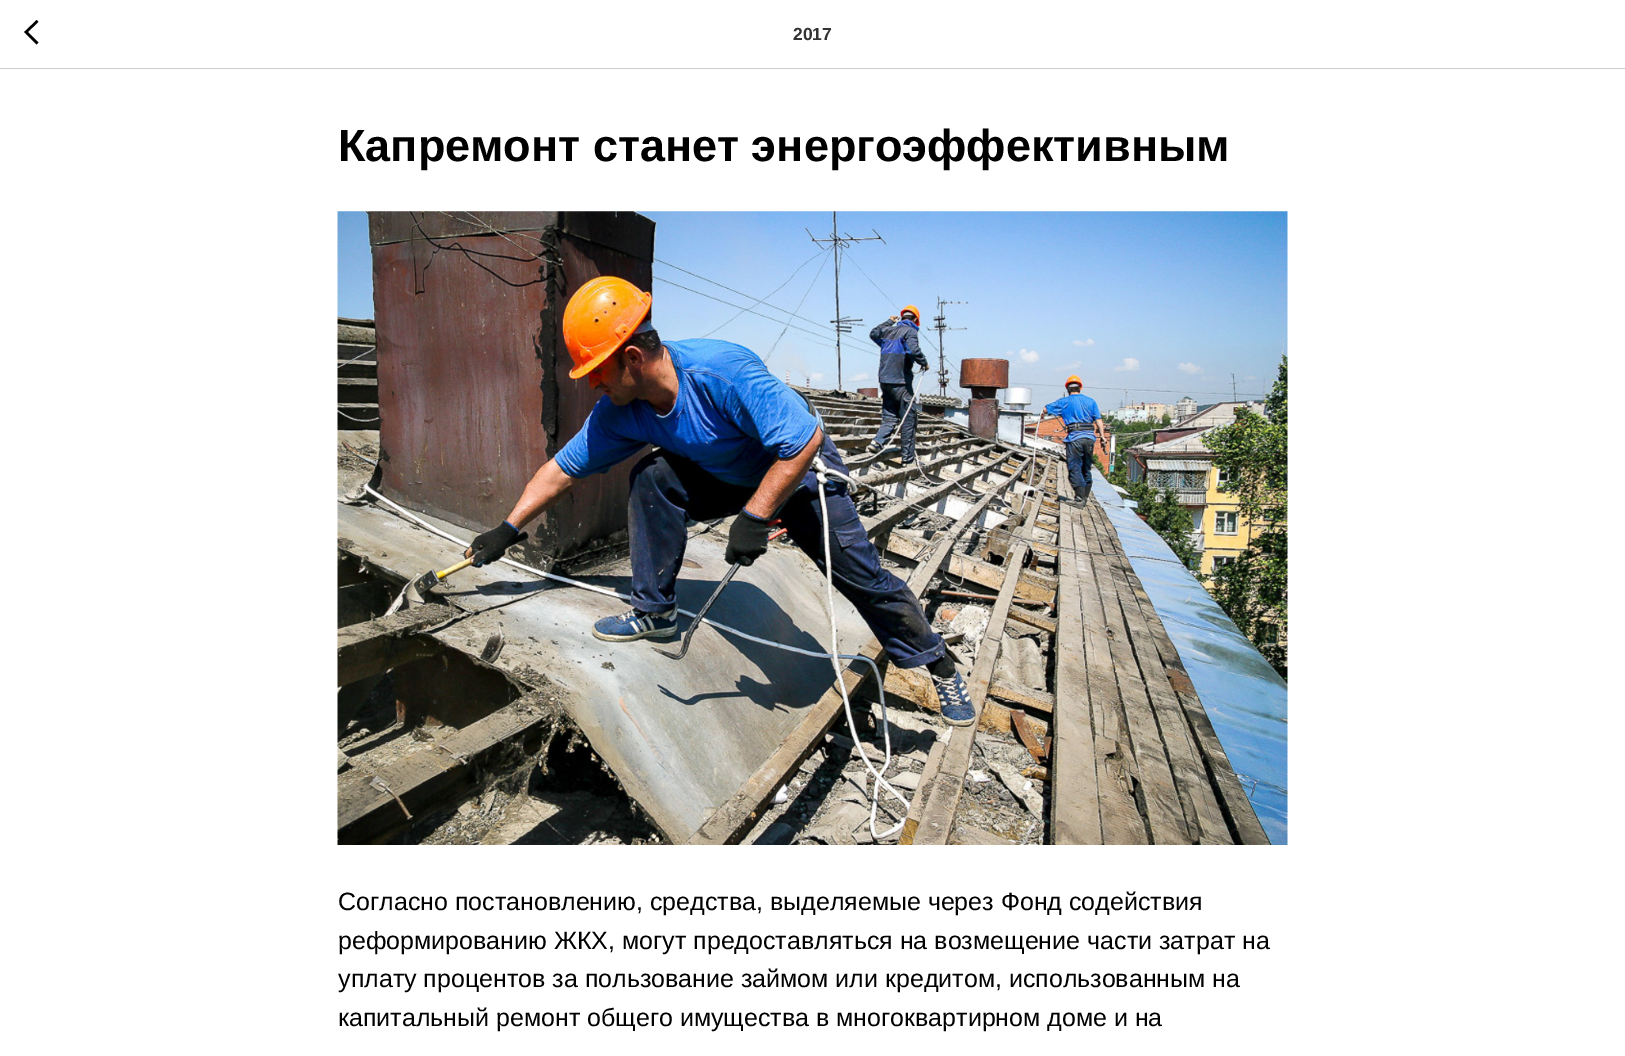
%!PS
<< /PageSize [1625 1056] >> setpagedevice
/picture { 5 dict begin { /h /w /y /x /name } { exch def } forall
  gsave x y translate w h scale
  w h 8 [w 0 0 h 0 0] name (r) file false 3 colorimage grestore end } def
0 1056 translate 1 -1 scale
4 setmiterlimit
1 setgray
0 0 1625 1056 rectfill
0.8 setgray
0 68 1625 1 rectfill
0 setgray
2.5 setlinewidth
newpath 37.5 43.5 moveto 26 32 lineto 37.5 21 lineto stroke
/LiberationSans-Bold [17.5 0 0 -17.5 0 0] selectfont
0.2 setgray
793 40 moveto (2017) show
/LiberationSans-Bold [45 0 0 -45 0 0] selectfont
0 setgray
338 161 moveto (Капремонт станет энергоэффективным) show
(img1.rgb) 337 211 951 634 picture
/LiberationSans-Regular [25 0 0 -25 0 0] selectfont
338 910 moveto (Согласно постановлению, средства, выделяемые через Фонд содействия) show
338 949 moveto (реформированию ЖКХ, могут предоставляться на возмещение части затрат на) show
338 987 moveto (уплату процентов за пользование займом или кредитом, использованным на) show
338 1026 moveto (капитальный ремонт общего имущества в многоквартирном доме и на) show
showpage
